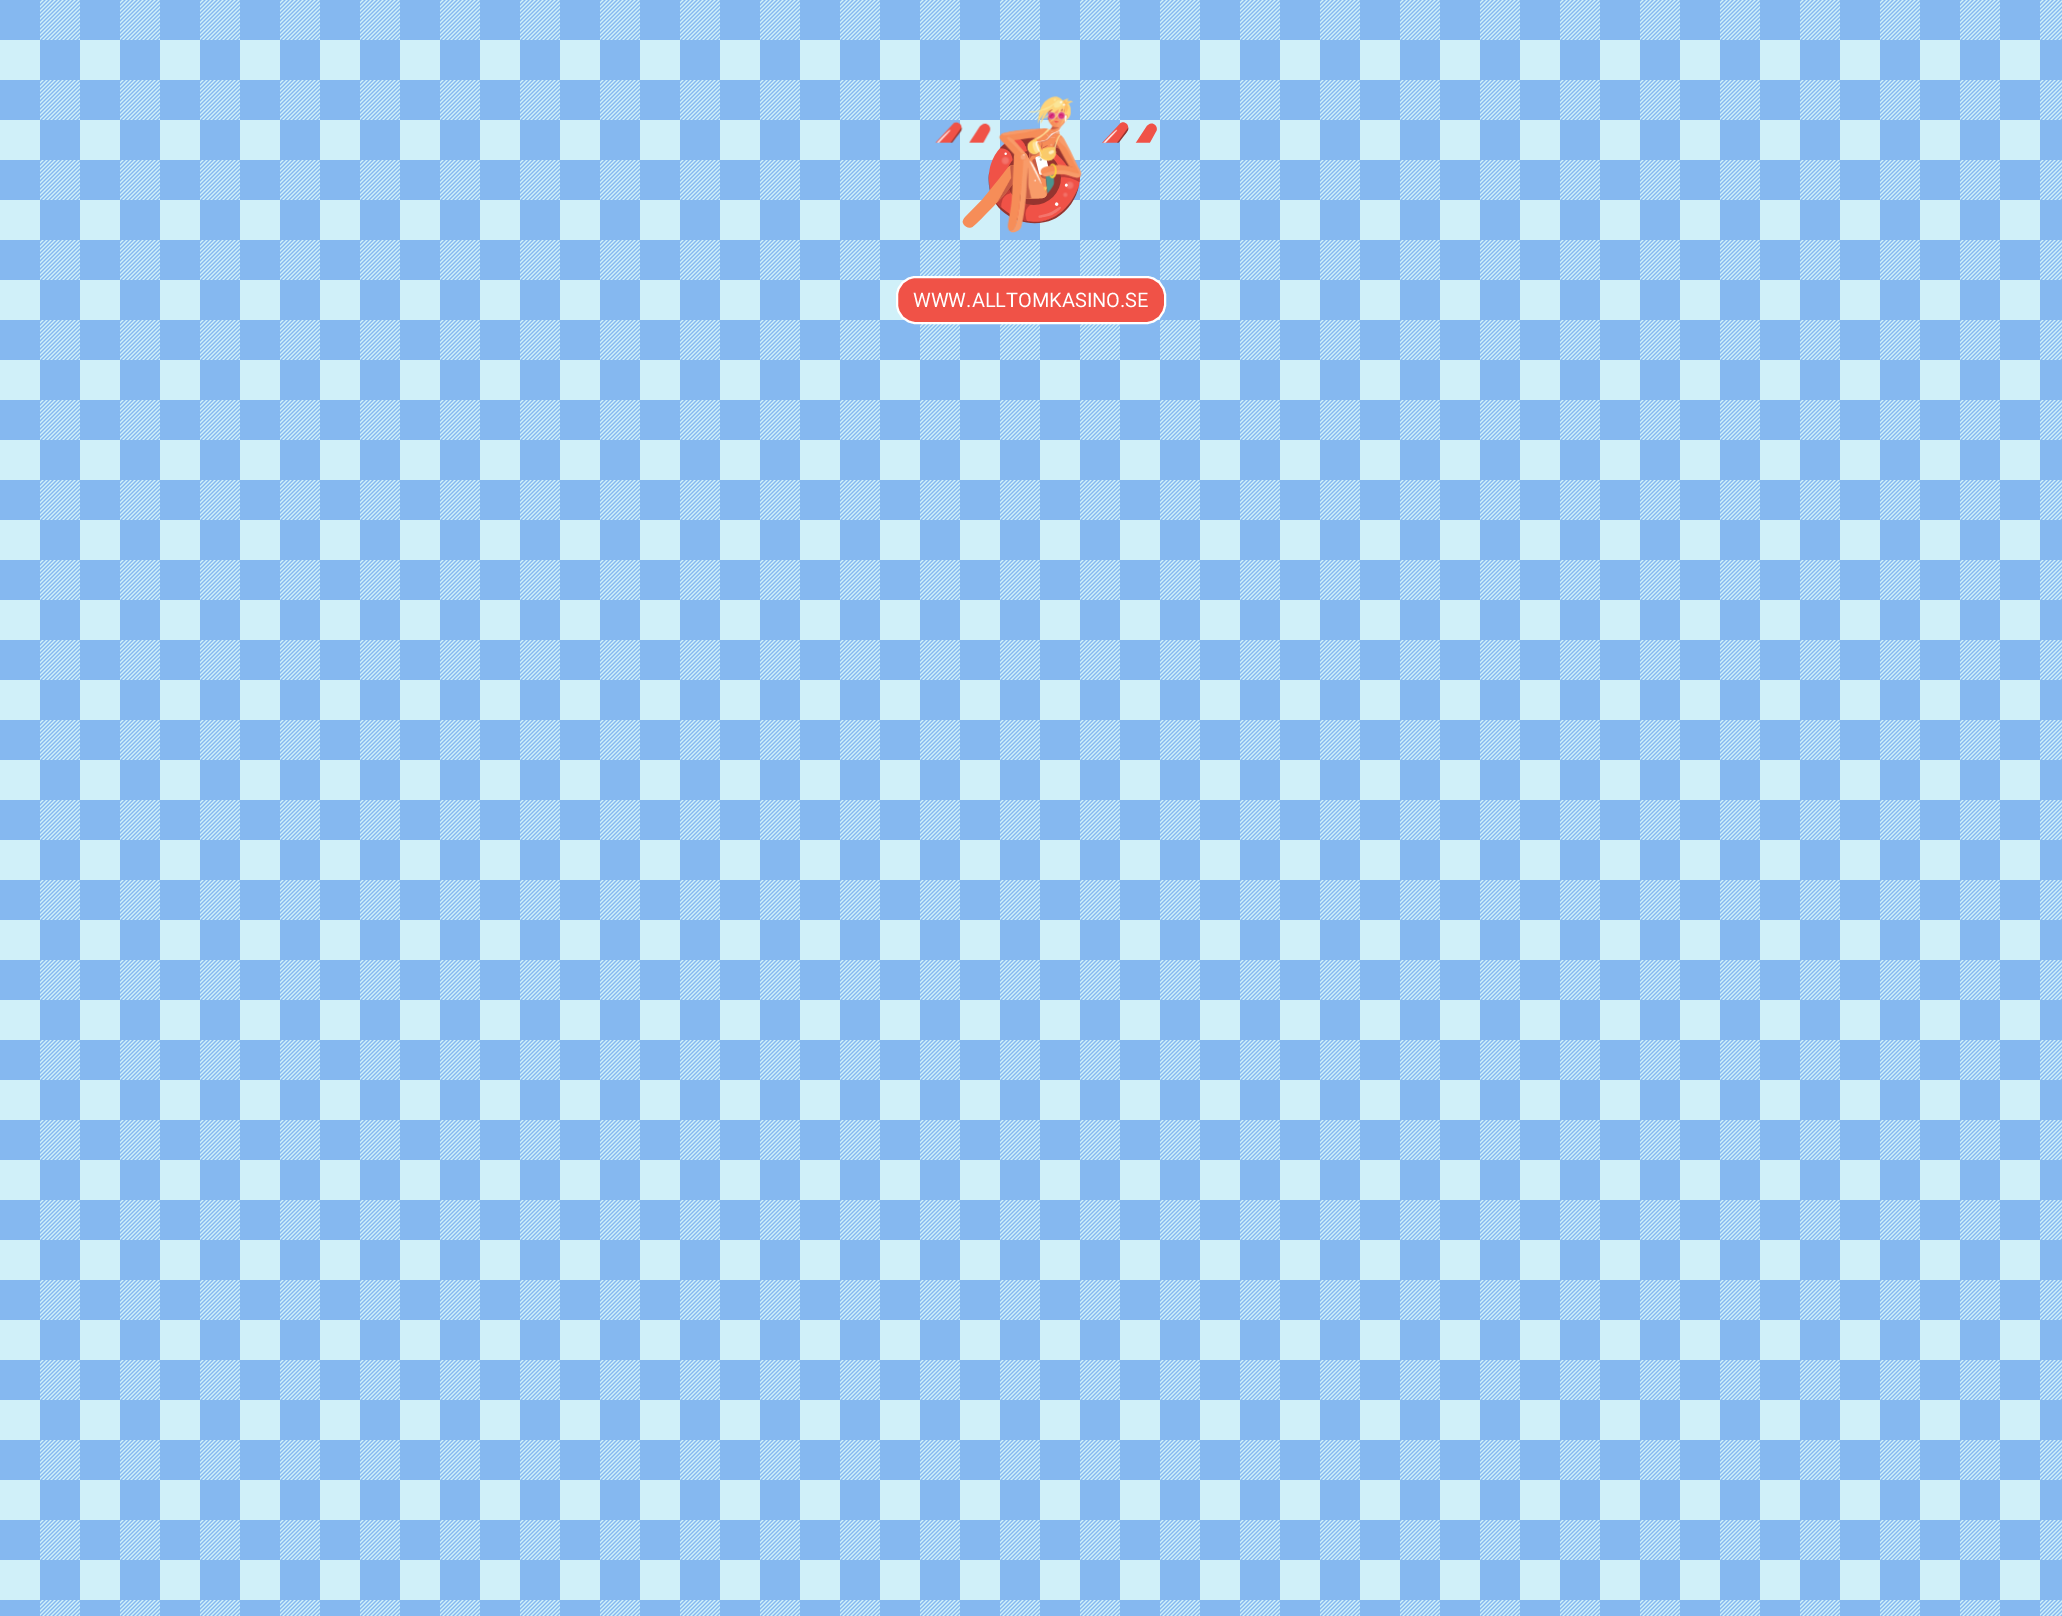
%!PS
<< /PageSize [2062 1616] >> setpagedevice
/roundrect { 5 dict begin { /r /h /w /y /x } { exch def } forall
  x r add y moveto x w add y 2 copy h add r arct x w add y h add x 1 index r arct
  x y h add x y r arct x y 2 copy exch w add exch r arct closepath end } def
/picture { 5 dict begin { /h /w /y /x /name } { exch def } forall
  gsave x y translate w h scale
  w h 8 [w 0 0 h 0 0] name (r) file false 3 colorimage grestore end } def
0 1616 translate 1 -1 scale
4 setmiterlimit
0.816 0.941 0.976 setrgbcolor
0 0 2062 1616 rectfill
(img1.rgb) 0 0 2062 1616 picture
(img2.rgb) 935 96 222 137 picture
0.941 0.322 0.278 setrgbcolor
897 277 268 46 19 roundrect gsave fill grestore
1 setgray
2 setlinewidth
stroke
/Roboto-Regular [20 0 0 -20 0 0] selectfont
913 307 moveto (WWW.ALLTOMKASINO.SE) show
showpage
